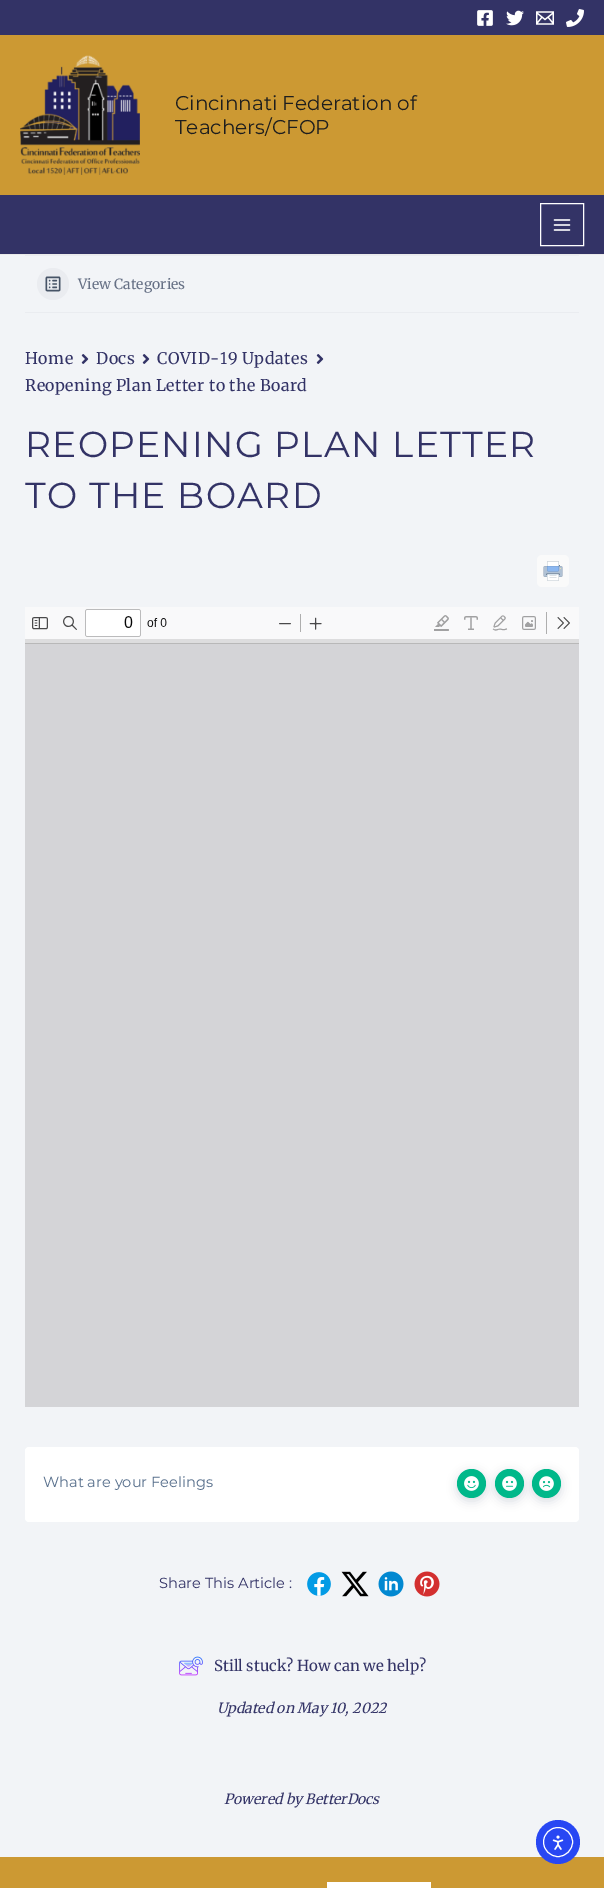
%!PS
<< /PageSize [604 1888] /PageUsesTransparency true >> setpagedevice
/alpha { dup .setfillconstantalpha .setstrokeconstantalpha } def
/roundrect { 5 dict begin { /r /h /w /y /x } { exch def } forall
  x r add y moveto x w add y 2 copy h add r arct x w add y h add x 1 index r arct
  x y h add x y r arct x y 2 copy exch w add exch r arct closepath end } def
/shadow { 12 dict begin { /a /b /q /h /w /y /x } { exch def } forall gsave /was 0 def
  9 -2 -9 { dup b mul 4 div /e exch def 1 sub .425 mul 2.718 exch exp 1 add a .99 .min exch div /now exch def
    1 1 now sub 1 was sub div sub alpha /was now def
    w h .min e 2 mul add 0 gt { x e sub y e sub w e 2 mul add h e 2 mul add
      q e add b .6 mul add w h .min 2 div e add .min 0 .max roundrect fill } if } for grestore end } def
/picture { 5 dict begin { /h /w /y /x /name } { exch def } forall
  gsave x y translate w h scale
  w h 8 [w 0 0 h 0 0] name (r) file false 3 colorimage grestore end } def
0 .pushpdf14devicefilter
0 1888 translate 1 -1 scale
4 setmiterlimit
0.949 0.957 0.969 setrgbcolor
0 0 604 1888 rectfill
0.2 0.2 0.4 setrgbcolor
0 0 604 35 rectfill
(img1.rgb) 477 10 16 16 picture
(img2.rgb) 506 10 18 16 picture
(img3.rgb) 536 11 18 14 picture
(img4.rgb) 566 9 18 18 picture
0.8 0.6 0.2 setrgbcolor
0 35 604 160 rectfill
(img5.rgb) 20 55 120 120 picture
/Montserrat-Regular [20 0 0 -20 0 0] selectfont
0.118 setgray
175 110 moveto (Cincinnati Federation of) show
175 134 moveto (Teachers/CFOP) show
0.2 0.2 0.4 setrgbcolor
0 195 604 59 rectfill
0.918 setgray
0 254 604 1 rectfill
1 setgray
540.5 203.5 43 42 rectstroke
(img6.rgb) 553 219 18 12 picture
0.918 0.925 0.941 setrgbcolor
25 255 554 1 rectfill
25 312 554 1 rectfill
newpath 53 284 16 0 360 arc closepath fill
(img7.rgb) 45 276 16 16 picture
/Merriweather-Light [14 0 0 -14 0 0] selectfont
0.4 0.439 0.522 setrgbcolor
78 289 moveto (View Categories) show
/Merriweather-Light [16 0 0 -16 0 0] selectfont
0.2 0.2 0.4 setrgbcolor
25 364 moveto 0.5 0 (Home) ashow
(img8.rgb) 81 354 8 10 picture
96 364 moveto 0.5 0 (Docs) ashow
(img8.rgb) 142 354 8 10 picture
157 364 moveto 0.5 0 (COVID-19 Updates) ashow
(img8.rgb) 316 354 8 10 picture
25 391 moveto 0.4 0 (Reopening Plan Letter to the Board) ashow
/Montserrat-Regular [36 0 0 -36 0 0] selectfont
25 457 moveto 1.25 0 (REOPENING PLAN LETTER) ashow
25 508 moveto 1.25 0 (TO THE BOARD) ashow
0.98 setgray
537 555 32 32 5 roundrect fill
(img9.rgb) 543 561 20 20 picture
(img10.rgb) 25 607 554 800 picture
1 setgray
25 1447 554 75 4 roundrect fill
/Montserrat-Regular [14.6 0 0 -14.6 0 0] selectfont
0.337 0.431 0.545 setrgbcolor
43 1487 moveto (What are your Feelings) show
0.012 0.114 0.235 setrgbcolor
457 1472 29 29 14.5 5 0.15 shadow
0 0.722 0.541 setrgbcolor
newpath 471.5 1483.5 14.5 0 360 arc closepath fill
(img11.rgb) 464 1476 15 15 picture
0.012 0.114 0.235 setrgbcolor
495 1472 29 29 14.5 5 0.15 shadow
0 0.722 0.541 setrgbcolor
newpath 509.5 1483.5 14.5 0 360 arc closepath fill
0.012 0.114 0.235 setrgbcolor
532 1472 29 29 14.5 5 0.15 shadow
(img12.rgb) 502 1476 15 15 picture
0 0.722 0.541 setrgbcolor
newpath 546.5 1483.5 14.5 0 360 arc closepath fill
(img13.rgb) 539 1476 15 15 picture
0.2 0.2 0.4 setrgbcolor
159 1588 moveto (Share This Article :) show
(img14.rgb) 307 1572 24 24 picture
(img15.rgb) 341 1571 28 26 picture
(img16.rgb) 378 1571 26 26 picture
(img17.rgb) 414 1571 26 26 picture
(img18.rgb) 179 1656 24 20 picture
/Merriweather-Light [15 0 0 -15 0 0] selectfont
214 1671 moveto (Still stuck? How can we help?) show
/Merriweather-LightItalic [14 0 0 -14 0 0] selectfont
217 1713 moveto (Updated on May 10, 2022) show
224 1804 moveto (Powered by BetterDocs) show
0.8 0.6 0.2 setrgbcolor
0 1857 604 31 rectfill
1 setgray
327 1882 104 6 rectfill
0.157 0.278 0.953 setrgbcolor
newpath 558 1842 22 0 360 arc closepath fill
1 setgray
newpath 558 1842 14.5 0 360 arc closepath stroke
(img19.rgb) 552 1835 12 15 picture
.poppdf14devicefilter showpage
